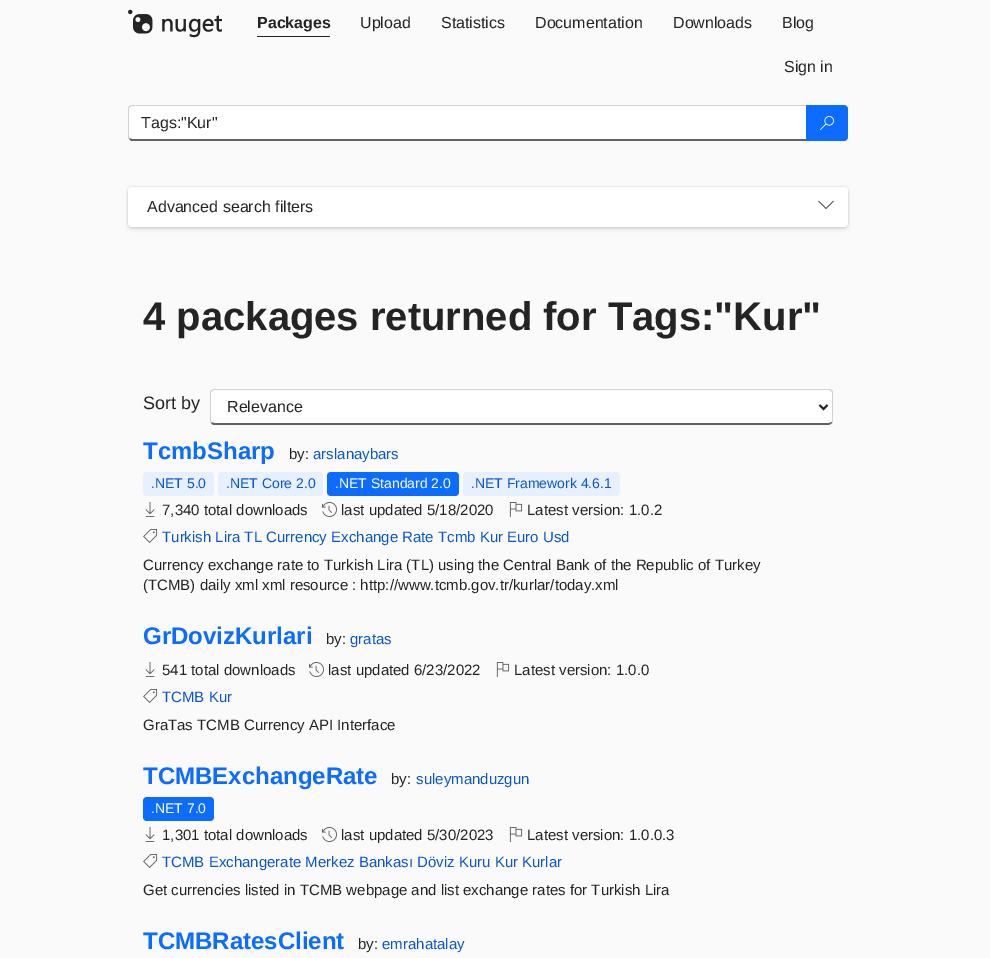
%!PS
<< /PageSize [990 958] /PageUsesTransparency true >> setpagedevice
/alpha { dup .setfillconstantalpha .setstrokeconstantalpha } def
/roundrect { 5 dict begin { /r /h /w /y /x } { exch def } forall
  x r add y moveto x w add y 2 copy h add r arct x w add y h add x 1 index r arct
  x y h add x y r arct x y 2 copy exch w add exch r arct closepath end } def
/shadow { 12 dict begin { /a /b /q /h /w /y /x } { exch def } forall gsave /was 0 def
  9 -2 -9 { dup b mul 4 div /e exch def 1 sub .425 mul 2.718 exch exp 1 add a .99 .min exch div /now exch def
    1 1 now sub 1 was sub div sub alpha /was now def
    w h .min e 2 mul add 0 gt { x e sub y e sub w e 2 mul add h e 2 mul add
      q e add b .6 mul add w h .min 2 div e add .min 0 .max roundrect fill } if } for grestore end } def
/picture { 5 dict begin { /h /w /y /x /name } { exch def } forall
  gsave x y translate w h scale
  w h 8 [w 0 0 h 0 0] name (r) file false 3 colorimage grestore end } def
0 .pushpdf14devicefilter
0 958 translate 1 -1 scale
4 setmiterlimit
0.98 setgray
0 0 990 958 rectfill
(img1.rgb) 128 9 94 29 picture
/LiberationSans-Bold [16 0 0 -16 0 0] selectfont
0.141 setgray
257 28 moveto (Packages) show
257 36 73 1 rectfill
/LiberationSans-Regular [16 0 0 -16 0 0] selectfont
360 28 moveto (Upload) show
441 28 moveto (Statistics) show
535 28 moveto (Documentation) show
673 28 moveto (Downloads) show
782 28 moveto (Blog) show
784 72 moveto (Sign in) show
1 setgray
newpath 132 106 moveto 806 106 lineto 806 139 lineto 132 139 lineto 130 139 129 138 129 137 curveto 129 109 lineto 129 107 130 106 132 106 curveto closepath fill
0.82 setgray
newpath 132 105 moveto 129 106 lineto 130 107 lineto 132 106 lineto 806 106 lineto 807 105 lineto closepath fill
0.38 setgray
newpath 807 141 moveto 806 139 lineto 132 139 lineto 129 138 lineto 129 139 lineto 130 140 131 141 132 141 curveto closepath fill
0.82 setgray
newpath 128 109 moveto 128 137 lineto 128 138 128.5 138.5 129 139.5 curveto 129.5 138 lineto 129 137 lineto 129 108.5 lineto 130 107 lineto 129 106 lineto 128.5 107 128 108 128 109 curveto closepath fill
0.141 setgray
141 128 moveto (Tags:"Kur") show
0.043 0.424 1 setrgbcolor
newpath 806 105 moveto 844 105 lineto 846 105 848 107 848 109 curveto 848 137 lineto 848 139 846 141 844 141 curveto 806 141 lineto closepath fill
(img2.rgb) 820 116 14 14 picture
0 setgray
128 189 720 40 4 2 0.14 shadow
128 187 720 40 4 1 0.12 shadow
1 setgray
128 187 720 40 4 roundrect fill
0.141 setgray
147 212 moveto (Advanced search filters) show
(img3.rgb) 818 200 16 9 picture
/LiberationSans-Bold [40 0 0 -40 0 0] selectfont
143 330 moveto (4 packages returned for Tags:"Kur") show
/LiberationSans-Regular [18 0 0 -18 0 0] selectfont
143 409 moveto (Sort by) show
1 setgray
newpath 214 390 moveto 829 390 lineto 831 390 832 391 832 393 curveto 832 421 lineto 832 422 831 423 829 423 curveto 214 423 lineto 212 423 211 422 211 421 curveto 211 393 lineto 211 391 212 390 214 390 curveto closepath fill
0.82 setgray
newpath 214 389 moveto 211 390 lineto 212 391 lineto 214 390 lineto 829 390 lineto 831 391 lineto 832 390 lineto 829 389 lineto closepath fill
newpath 833 421 moveto 833 393 lineto 833 392 832.5 391 832 390 curveto 831 391 lineto 832 392.5 lineto 832 421 lineto 831.5 422 lineto 832 423.5 lineto 832.5 422.5 833 422 833 421 curveto closepath fill
0.38 setgray
newpath 214 425 moveto 829 425 lineto 832 423 lineto 832 422 lineto 829 423 lineto 214 423 lineto 211 422 lineto 211 423 lineto 212 424 213 425 214 425 curveto closepath fill
0.82 setgray
newpath 210 393 moveto 210 421 lineto 210 422 210.5 422.5 211 423.5 curveto 211.5 422 lineto 211 421 lineto 211 392.5 lineto 212 391 lineto 211 390 lineto 210.5 391 210 392 210 393 curveto closepath fill
0.141 setgray
2 setlinewidth
newpath 819.5 405 moveto 823.5 409 lineto 827.5 405 lineto stroke
/LiberationSans-Regular [16 0 0 -16 0 0] selectfont
227 412 moveto (Relevance) show
/LiberationSans-Bold [24 0 0 -24 0 0] selectfont
0.043 0.424 1 setrgbcolor
143 459 moveto (TcmbSharp) show
/LiberationSans-Regular [15 0 0 -15 0 0] selectfont
0.141 setgray
289 459 moveto (by:) show
0.035 0.337 0.8 setrgbcolor
313 459 moveto (arslanaybars) show
0.906 0.941 1 setrgbcolor
143 472 71 24 4 roundrect fill
/LiberationSans-Regular [14 0 0 -14 0 0] selectfont
0.035 0.337 0.8 setrgbcolor
151 488 moveto (.NET 5.0) show
0.906 0.941 1 setrgbcolor
218 472 105 24 4 roundrect fill
0.035 0.337 0.8 setrgbcolor
226 488 moveto (.NET Core 2.0) show
0.043 0.424 1 setrgbcolor
327 472 132 24 4 roundrect fill
1 setgray
335 488 moveto (.NET Standard 2.0) show
0.906 0.941 1 setrgbcolor
463 472 157 24 4 roundrect fill
0.035 0.337 0.8 setrgbcolor
471 488 moveto (.NET Framework 4.6.1) show
(img4.rgb) 145 502 10 15 picture
/LiberationSans-Regular [15 0 0 -15 0 0] selectfont
0.141 setgray
162 515 moveto (7,340 total downloads) show
(img5.rgb) 322 502 15 15 picture
341 515 moveto (last updated 5/18/2020) show
(img6.rgb) 509 502 14 15 picture
527 515 moveto (Latest version: 1.0.2) show
(img7.rgb) 143 529 15 14 picture
0.035 0.337 0.8 setrgbcolor
162 542 moveto (Turkish Lira TL Currency Exchange Rate Tcmb Kur Euro Usd) show
0.141 setgray
143 570 moveto (Currency exchange rate to Turkish Lira \(TL\) using the Central Bank of the Republic of Turkey) show
143 590 moveto (\(TCMB\) daily xml xml resource : http://www.tcmb.gov.tr/kurlar/today.xml) show
/LiberationSans-Bold [24 0 0 -24 0 0] selectfont
0.043 0.424 1 setrgbcolor
143 644 moveto (GrDovizKurlari) show
/LiberationSans-Regular [15 0 0 -15 0 0] selectfont
0.141 setgray
326 644 moveto (by:) show
0.035 0.337 0.8 setrgbcolor
350 644 moveto (gratas) show
(img4.rgb) 145 662 10 15 picture
0.141 setgray
162 675 moveto (541 total downloads) show
(img5.rgb) 309 662 15 15 picture
328 675 moveto (last updated 6/23/2022) show
(img6.rgb) 496 662 14 15 picture
514 675 moveto (Latest version: 1.0.0) show
(img7.rgb) 143 689 15 14 picture
0.035 0.337 0.8 setrgbcolor
162 702 moveto (TCMB Kur) show
0.141 setgray
143 730 moveto (GraTas TCMB Currency API Interface) show
/LiberationSans-Bold [24 0 0 -24 0 0] selectfont
0.043 0.424 1 setrgbcolor
143 784 moveto (TCMBExchangeRate) show
/LiberationSans-Regular [15 0 0 -15 0 0] selectfont
0.141 setgray
391 784 moveto (by:) show
0.035 0.337 0.8 setrgbcolor
416 784 moveto (suleymanduzgun) show
0.043 0.424 1 setrgbcolor
143 797 71 24 4 roundrect fill
/LiberationSans-Regular [14 0 0 -14 0 0] selectfont
1 setgray
151 813 moveto (.NET 7.0) show
(img4.rgb) 145 827 10 15 picture
/LiberationSans-Regular [15 0 0 -15 0 0] selectfont
0.141 setgray
162 840 moveto (1,301 total downloads) show
(img5.rgb) 322 827 15 15 picture
341 840 moveto (last updated 5/30/2023) show
(img6.rgb) 509 827 14 15 picture
527 840 moveto (Latest version: 1.0.0.3) show
(img7.rgb) 143 854 15 14 picture
0.035 0.337 0.8 setrgbcolor
162 867 moveto (TCMB Exchangerate Merkez Bankası Döviz Kuru Kur Kurlar) show
0.141 setgray
143 895 moveto (Get currencies listed in TCMB webpage and list exchange rates for Turkish Lira) show
/LiberationSans-Bold [24 0 0 -24 0 0] selectfont
0.043 0.424 1 setrgbcolor
143 949 moveto (TCMBRatesClient) show
/LiberationSans-Regular [15 0 0 -15 0 0] selectfont
0.141 setgray
358 949 moveto (by:) show
0.035 0.337 0.8 setrgbcolor
382 949 moveto (emrahatalay) show
.poppdf14devicefilter showpage
